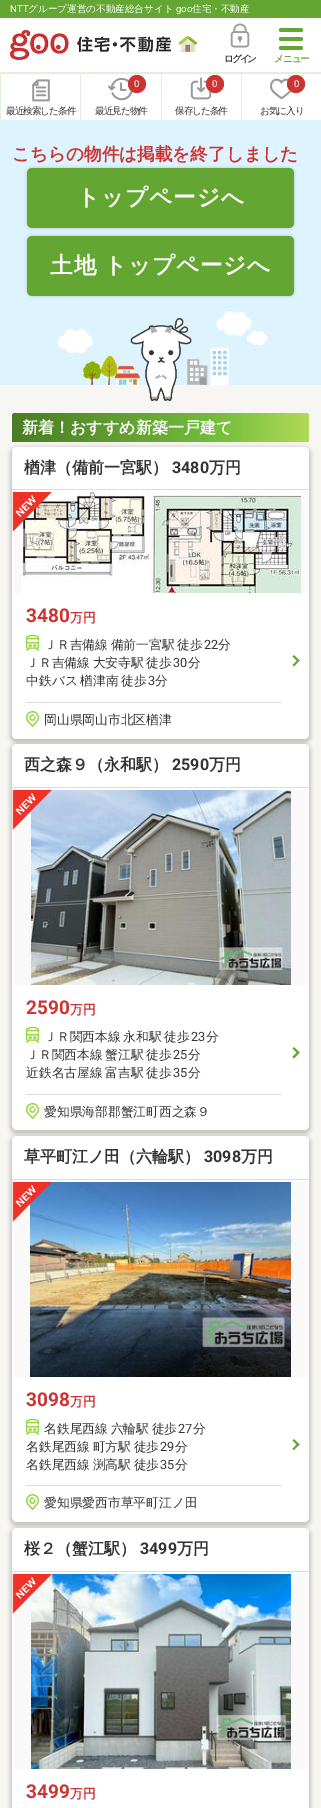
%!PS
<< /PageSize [321 1808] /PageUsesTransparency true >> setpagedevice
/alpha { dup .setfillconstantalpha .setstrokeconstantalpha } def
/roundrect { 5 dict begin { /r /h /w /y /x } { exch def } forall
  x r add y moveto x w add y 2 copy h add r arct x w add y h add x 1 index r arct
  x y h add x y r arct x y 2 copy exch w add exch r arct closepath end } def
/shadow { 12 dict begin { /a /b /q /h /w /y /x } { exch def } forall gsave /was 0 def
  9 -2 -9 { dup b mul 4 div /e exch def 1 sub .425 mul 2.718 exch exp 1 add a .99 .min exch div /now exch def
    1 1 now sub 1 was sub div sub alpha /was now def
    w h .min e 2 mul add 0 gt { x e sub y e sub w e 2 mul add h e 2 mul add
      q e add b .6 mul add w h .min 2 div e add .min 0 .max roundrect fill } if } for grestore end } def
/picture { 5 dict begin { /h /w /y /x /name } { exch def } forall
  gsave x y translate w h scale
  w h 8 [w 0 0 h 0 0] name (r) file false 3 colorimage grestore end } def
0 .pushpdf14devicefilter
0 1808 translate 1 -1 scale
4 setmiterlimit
0.969 0.965 0.949 setrgbcolor
0 0 321 1808 rectfill
1 setgray
0 18 321 54 rectfill
0.388 0.651 0.192 setrgbcolor
0 0 321 18 rectfill
/Roboto-Regular [9.6 0 0 -9.6 0 0] selectfont
1 setgray
10 12 moveto (NTT) show
/WenQuanYiZenHei-Medium [9.6 0 0 -9.6 0 0] selectfont
28 12 moveto (グループ運営の不動産総合サイト) show
/Roboto-Regular [9.6 0 0 -9.6 0 0] selectfont
176 12 moveto (goo) show
/WenQuanYiZenHei-Medium [9.6 0 0 -9.6 0 0] selectfont
192 12 moveto (住宅・不動産) show
(img1.rgb) 10 30 187 30 picture
(img2.rgb) 230 23 20 25 picture
/WenQuanYiZenHei-Bold [9.6 0 0 -9.6 0 0] selectfont
0.2 setgray
224 62 moveto -2 0 (ログイン) ashow
0.388 0.651 0.192 setrgbcolor
279 28 24 4 2 roundrect fill
279 37 24 4 2 roundrect fill
279 46 24 4 2 roundrect fill
274 62 moveto -1 0 (メニュー) ashow
0.89 0.937 0.851 setrgbcolor
0 72 321 2 rectfill
1 setgray
1 74 79 46 rectfill
0.89 0.937 0.851 setrgbcolor
0 74 1 46 rectfill
(img3.rgb) 32 79 18 23 picture
/WenQuanYiZenHei-Medium [9.6 0 0 -9.6 0 0] selectfont
0.2 setgray
6 114 moveto -1 0 (最近検索した条件) ashow
1 setgray
81 74 80 46 rectfill
0.89 0.937 0.851 setrgbcolor
80 74 1 46 rectfill
(img4.rgb) 108 77 25 24 picture
0.8 0.2 0.2 setrgbcolor
newpath 137 84 9 0 360 arc closepath fill
/Roboto-Regular [9.6 0 0 -9.6 0 0] selectfont
1 setgray
134 87 moveto (0) show
/WenQuanYiZenHei-Medium [9.6 0 0 -9.6 0 0] selectfont
0.2 setgray
95 114 moveto -1 0 (最近見た物件) ashow
1 setgray
162 74 79 46 rectfill
0.89 0.937 0.851 setrgbcolor
161 74 1 46 rectfill
(img5.rgb) 190 77 22 23 picture
0.8 0.2 0.2 setrgbcolor
newpath 215 84 9 0 360 arc closepath fill
/Roboto-Regular [9.6 0 0 -9.6 0 0] selectfont
1 setgray
212 87 moveto (0) show
/WenQuanYiZenHei-Medium [9.6 0 0 -9.6 0 0] selectfont
0.2 setgray
175 114 moveto -1 0 (保存した条件) ashow
1 setgray
242 74 79 46 rectfill
0.89 0.937 0.851 setrgbcolor
241 74 1 46 rectfill
(img6.rgb) 270 78 22 22 picture
0.8 0.2 0.2 setrgbcolor
newpath 296 84 9 0 360 arc closepath fill
/Roboto-Regular [9.6 0 0 -9.6 0 0] selectfont
1 setgray
294 87 moveto (0) show
/WenQuanYiZenHei-Medium [9.6 0 0 -9.6 0 0] selectfont
0.2 setgray
260 114 moveto -1 0 (お気に入り) ashow
0.867 0.957 1 setrgbcolor
0 120 321 191 rectfill
0 setgray
27 168 267 60 5 1.5 0.2 shadow
/WenQuanYiZenHei-Bold [17.6 0 0 -17.6 0 0] selectfont
0.8 0.2 0.2 setrgbcolor
12 160 moveto (こちらの物件は掲載を終了しました) show
0.388 0.651 0.192 setrgbcolor
27 168 267 60 5 roundrect fill
/WenQuanYiZenHei-Bold [22.5 0 0 -22.5 0 0] selectfont
1 setgray
77 205 moveto 1 0 (トップページへ) ashow
0 setgray
27 236 267 60 5 1.5 0.2 shadow
0.388 0.651 0.192 setrgbcolor
27 236 267 60 5 roundrect fill
1 setgray
50 273 moveto -1 0 32 1 0 (土地 トップページへ) awidthshow
(img7.rgb) 0 311 321 90 picture
gsave newpath 17 413 moveto 304 413 lineto 307 413 309 415 309 418 curveto 309 442 lineto 12 442 lineto 12 418 lineto 12 415 14 413 17 413 curveto closepath clip newpath
<< /ShadingType 2 /ColorSpace /DeviceRGB /Coords [12 428 309 428] /Extend [true true] /Function << /FunctionType 3 /Domain [0 1] /Functions [<< /FunctionType 2 /Domain [0 1] /C0 [0.29 0.486 0.145] /C1 [0.459 0.745 0.239] /N 1 >> << /FunctionType 2 /Domain [0 1] /C0 [0.459 0.745 0.239] /C1 [0.694 0.855 0.337] /N 1 >>] /Bounds [0.7] /Encode [0 1 0 1] >> >> shfill grestore
/WenQuanYiZenHei-Bold [16 0 0 -16 0 0] selectfont
22 433 moveto (新着！おすすめ新築一戸建て) show
0 setgray
10 447 301 296 7 2 0.2 shadow
1 setgray
newpath 17 447 moveto 304 447 lineto 307 447 309 449 309 452 curveto 309 490 lineto 12 490 lineto 12 452 lineto 12 449 14 447 17 447 curveto closepath fill
0.867 setgray
12 489 297 1 rectfill
0.2 setgray
24 473 moveto (楢津（備前一宮駅）) show
/Roboto-Bold [16 0 0 -16 0 0] selectfont
172 473 moveto (3480) show
/WenQuanYiZenHei-Bold [16 0 0 -16 0 0] selectfont
209 473 moveto (万円) show
0 setgray
10 744 301 390 7 2 0.2 shadow
1 setgray
newpath 12 490 moveto 309 490 lineto 309 734 lineto 309 737 307 739 304 739 curveto 17 739 lineto 14 739 12 737 12 734 curveto closepath fill
0.976 setgray
14 492 293 101 rectfill
(img9.rgb) 21 492 280 101 picture
(img8.rgb) 12 492 40 40 picture
/Roboto-Bold [19 0 0 -19 0 0] selectfont
0.8 0.2 0.2 setrgbcolor
26 622 moveto (3480) show
/WenQuanYiZenHei-Bold [12.75 0 0 -12.75 0 0] selectfont
70 622 moveto (万円) show
(img10.rgb) 26 635 13 16 picture
/WenQuanYiZenHei-Medium [12.75 0 0 -12.75 0 0] selectfont
0.2 setgray
44 649 moveto -1 0 32 (ＪＲ吉備線 備前一宮駅 徒歩) widthshow
/Roboto-Regular [12.75 0 0 -12.75 0 0] selectfont
204 649 moveto (22) show
/WenQuanYiZenHei-Medium [12.75 0 0 -12.75 0 0] selectfont
218 649 moveto (分) show
26 667 moveto -1 0 32 (ＪＲ吉備線 大安寺駅 徒歩) widthshow
/Roboto-Regular [12.75 0 0 -12.75 0 0] selectfont
173 667 moveto (30) show
/WenQuanYiZenHei-Medium [12.75 0 0 -12.75 0 0] selectfont
188 667 moveto (分) show
26 685 moveto -1 0 32 (中鉄バス 楢津南 徒歩) widthshow
/Roboto-Regular [12.75 0 0 -12.75 0 0] selectfont
148 685 moveto (3) show
/WenQuanYiZenHei-Medium [12.75 0 0 -12.75 0 0] selectfont
155 685 moveto (分) show
0.388 0.651 0.192 setrgbcolor
newpath 292.5 656.5 moveto 294 655 lineto 299.5 660.5 lineto 298 662 lineto closepath fill
newpath 292.5 665 moveto 298 659.5 lineto 299.5 660.5 lineto 294 666.5 lineto closepath fill
0.867 setgray
26 702 256 1 rectfill
(img11.rgb) 26 711 13 16 picture
0.2 setgray
44 724 moveto (岡山県岡山市北区楢津) show
1 setgray
newpath 17 744 moveto 304 744 lineto 307 744 309 746 309 749 curveto 309 788 lineto 12 788 lineto 12 749 lineto 12 746 14 744 17 744 curveto closepath fill
0.867 setgray
12 787 297 1 rectfill
/WenQuanYiZenHei-Bold [16 0 0 -16 0 0] selectfont
0.2 setgray
24 770 moveto (西之森９（永和駅）) show
/Roboto-Bold [16 0 0 -16 0 0] selectfont
172 770 moveto (2590) show
/WenQuanYiZenHei-Bold [16 0 0 -16 0 0] selectfont
209 770 moveto (万円) show
0 setgray
10 1136 301 390 7 2 0.2 shadow
1 setgray
newpath 12 788 moveto 309 788 lineto 309 1125 lineto 309 1128 307 1130 304 1130 curveto 17 1130 lineto 14 1130 12 1128 12 1125 curveto closepath fill
0.976 setgray
14 790 293 195 rectfill
(img13.rgb) 31 790 260 195 picture
(img12.rgb) 12 790 40 40 picture
/Roboto-Bold [19 0 0 -19 0 0] selectfont
0.8 0.2 0.2 setrgbcolor
26 1014 moveto (2590) show
/WenQuanYiZenHei-Bold [12.75 0 0 -12.75 0 0] selectfont
70 1014 moveto (万円) show
(img10.rgb) 26 1027 13 16 picture
/WenQuanYiZenHei-Medium [12.75 0 0 -12.75 0 0] selectfont
0.2 setgray
44 1041 moveto -1 0 32 (ＪＲ関西本線 永和駅 徒歩) widthshow
/Roboto-Regular [12.75 0 0 -12.75 0 0] selectfont
191 1041 moveto (23) show
/WenQuanYiZenHei-Medium [12.75 0 0 -12.75 0 0] selectfont
206 1041 moveto (分) show
26 1059 moveto -1 0 32 (ＪＲ関西本線 蟹江駅 徒歩) widthshow
/Roboto-Regular [12.75 0 0 -12.75 0 0] selectfont
173 1059 moveto (25) show
/WenQuanYiZenHei-Medium [12.75 0 0 -12.75 0 0] selectfont
188 1059 moveto (分) show
26 1077 moveto -1 0 32 (近鉄名古屋線 富吉駅 徒歩) widthshow
/Roboto-Regular [12.75 0 0 -12.75 0 0] selectfont
173 1077 moveto (35) show
/WenQuanYiZenHei-Medium [12.75 0 0 -12.75 0 0] selectfont
188 1077 moveto (分) show
0.388 0.651 0.192 setrgbcolor
newpath 292.5 1048.5 moveto 294 1047 lineto 299.5 1052.5 lineto 298 1054 lineto closepath fill
newpath 292.5 1057 moveto 298 1051 lineto 299.5 1052.5 lineto 294 1058.5 lineto closepath fill
0.867 setgray
26 1094 256 1 rectfill
(img11.rgb) 26 1103 13 16 picture
0.2 setgray
44 1116 moveto (愛知県海部郡蟹江町西之森９) show
1 setgray
newpath 17 1136 moveto 304 1136 lineto 307 1136 309 1138 309 1141 curveto 309 1180 lineto 12 1180 lineto 12 1141 lineto 12 1138 14 1136 17 1136 curveto closepath fill
0.867 setgray
12 1179 297 1 rectfill
/WenQuanYiZenHei-Bold [16 0 0 -16 0 0] selectfont
0.2 setgray
24 1162 moveto (草平町江ノ田（六輪駅）) show
/Roboto-Bold [16 0 0 -16 0 0] selectfont
204 1162 moveto (3098) show
/WenQuanYiZenHei-Bold [16 0 0 -16 0 0] selectfont
241 1162 moveto (万円) show
0 setgray
10 1528 301 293 7 2 0.2 shadow
1 setgray
newpath 12 1180 moveto 309 1180 lineto 309 1517 lineto 309 1520 307 1522 304 1522 curveto 17 1522 lineto 14 1522 12 1520 12 1517 curveto closepath fill
0.976 setgray
14 1182 293 195 rectfill
(img15.rgb) 30 1182 261 195 picture
(img14.rgb) 12 1182 40 40 picture
/Roboto-Bold [19 0 0 -19 0 0] selectfont
0.8 0.2 0.2 setrgbcolor
26 1406 moveto (3098) show
/WenQuanYiZenHei-Bold [12.75 0 0 -12.75 0 0] selectfont
70 1406 moveto (万円) show
(img10.rgb) 26 1419 13 16 picture
/WenQuanYiZenHei-Medium [12.75 0 0 -12.75 0 0] selectfont
0.2 setgray
44 1433 moveto -1 0 32 (名鉄尾西線 六輪駅 徒歩) widthshow
/Roboto-Regular [12.75 0 0 -12.75 0 0] selectfont
178 1433 moveto (27) show
/WenQuanYiZenHei-Medium [12.75 0 0 -12.75 0 0] selectfont
193 1433 moveto (分) show
26 1451 moveto -1 0 32 (名鉄尾西線 町方駅 徒歩) widthshow
/Roboto-Regular [12.75 0 0 -12.75 0 0] selectfont
160 1451 moveto (29) show
/WenQuanYiZenHei-Medium [12.75 0 0 -12.75 0 0] selectfont
175 1451 moveto (分) show
26 1469 moveto -1 0 32 (名鉄尾西線 渕高駅 徒歩) widthshow
/Roboto-Regular [12.75 0 0 -12.75 0 0] selectfont
160 1469 moveto (35) show
/WenQuanYiZenHei-Medium [12.75 0 0 -12.75 0 0] selectfont
175 1469 moveto (分) show
0.388 0.651 0.192 setrgbcolor
newpath 292.5 1440.5 moveto 294 1439 lineto 299.5 1444.5 lineto 298 1446 lineto closepath fill
newpath 292.5 1449 moveto 298 1443 lineto 299.5 1444.5 lineto 294 1450 lineto closepath fill
0.867 setgray
26 1485 256 1 rectfill
(img11.rgb) 26 1494 13 16 picture
0.2 setgray
44 1507 moveto (愛知県愛西市草平町江ノ田) show
1 setgray
newpath 17 1528 moveto 304 1528 lineto 307 1528 309 1530 309 1533 curveto 309 1572 lineto 12 1572 lineto 12 1533 lineto 12 1530 14 1528 17 1528 curveto closepath fill
0.867 setgray
12 1571 297 1 rectfill
/WenQuanYiZenHei-Bold [16 0 0 -16 0 0] selectfont
0.2 setgray
24 1554 moveto (桜２（蟹江駅）) show
/Roboto-Bold [16 0 0 -16 0 0] selectfont
140 1554 moveto (3499) show
/WenQuanYiZenHei-Bold [16 0 0 -16 0 0] selectfont
177 1554 moveto (万円) show
1 setgray
12 1572 297 236 rectfill
0.976 setgray
14 1574 293 195 rectfill
(img17.rgb) 31 1574 260 195 picture
(img16.rgb) 12 1574 40 40 picture
/Roboto-Bold [19 0 0 -19 0 0] selectfont
0.8 0.2 0.2 setrgbcolor
26 1798 moveto (3499) show
/WenQuanYiZenHei-Bold [12.75 0 0 -12.75 0 0] selectfont
70 1798 moveto (万円) show
.poppdf14devicefilter showpage
